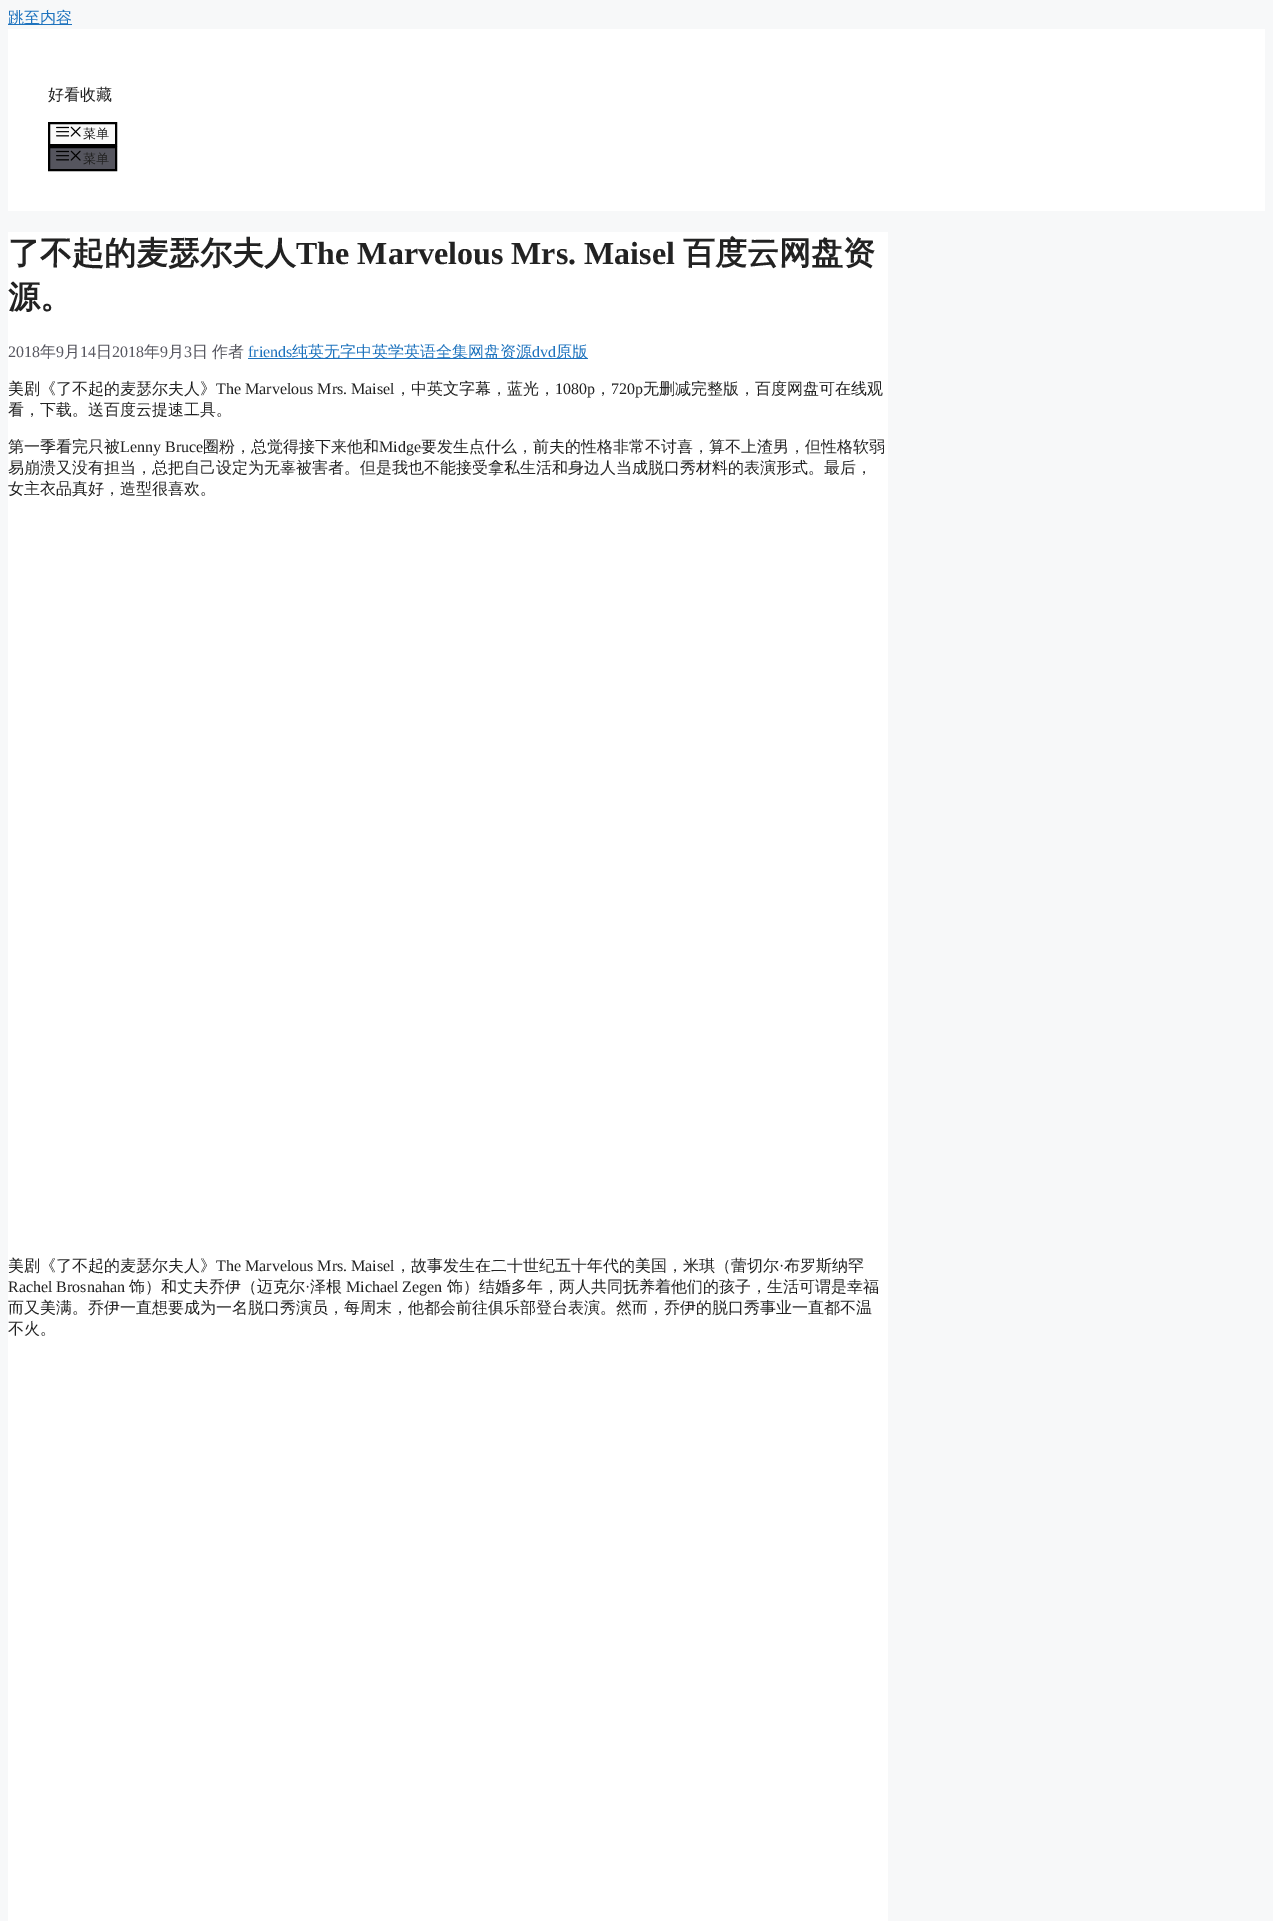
%!PS
<< /PageSize [1273 1921] >> setpagedevice
/picture { 5 dict begin { /h /w /y /x /name } { exch def } forall
  gsave x y translate w h scale
  w h 8 [w 0 0 h 0 0] name (r) file false 3 colorimage grestore end } def
0 1921 translate 1 -1 scale
4 setmiterlimit
0.969 0.973 0.976 setrgbcolor
0 0 1273 1921 rectfill
0.118 0.451 0.745 setrgbcolor
8 24 64 1 rectfill
/WenQuanYiZenHei-Medium [16 0 0 -16 0 0] selectfont
8 23 moveto (跳至内容) show
1 setgray
8 29 1257 182 rectfill
0.133 setgray
48 100 moveto (好看收藏) show
0.98 setgray
newpath 49 123 moveto 116 123 lineto 116 145 lineto 49 145 lineto closepath gsave fill grestore
0 setgray
2 setlinewidth
stroke
(img1.rgb) 56 126 13 11 picture
(img2.rgb) 70 126 11 11 picture
/WenQuanYiZenHei-Medium [13 0 0 -13 0 0] selectfont
0.133 setgray
83 138 moveto (菜单) show
0.333 0.333 0.369 setrgbcolor
newpath 49 147 moveto 116 147 lineto 116 170 lineto 49 170 lineto closepath gsave fill grestore
0 setgray
stroke
(img3.rgb) 56 150 13 11 picture
(img4.rgb) 70 150 11 11 picture
0.133 setgray
83 163 moveto (菜单) show
1 setgray
8 232 880 1689 rectfill
/WenQuanYiZenHei-Bold [32 0 0 -32 0 0] selectfont
0.133 setgray
8 264 moveto (了不起的麦瑟尔夫人) show
/LiberationSerif-Bold [32 0 0 -32 0 0] selectfont
296 264 moveto (The Marvelous Mrs. Maisel) show
/WenQuanYiZenHei-Bold [32 0 0 -32 0 0] selectfont
683 264 moveto (百度云网盘资) show
8 308 moveto (源。) show
/LiberationSerif-Regular [16 0 0 -16 0 0] selectfont
0.341 0.341 0.376 setrgbcolor
8 357 moveto (2018) show
/WenQuanYiZenHei-Medium [16 0 0 -16 0 0] selectfont
40 357 moveto (年) show
/LiberationSerif-Regular [16 0 0 -16 0 0] selectfont
56 357 moveto (9) show
/WenQuanYiZenHei-Medium [16 0 0 -16 0 0] selectfont
64 357 moveto (月) show
/LiberationSerif-Regular [16 0 0 -16 0 0] selectfont
80 357 moveto (14) show
/WenQuanYiZenHei-Medium [16 0 0 -16 0 0] selectfont
96 357 moveto (日) show
/LiberationSerif-Regular [16 0 0 -16 0 0] selectfont
112 357 moveto (2018) show
/WenQuanYiZenHei-Medium [16 0 0 -16 0 0] selectfont
144 357 moveto (年) show
/LiberationSerif-Regular [16 0 0 -16 0 0] selectfont
160 357 moveto (9) show
/WenQuanYiZenHei-Medium [16 0 0 -16 0 0] selectfont
168 357 moveto (月) show
/LiberationSerif-Regular [16 0 0 -16 0 0] selectfont
184 357 moveto (3) show
/WenQuanYiZenHei-Medium [16 0 0 -16 0 0] selectfont
192 357 moveto (日) show
212 357 moveto (作者) show
/LiberationSerif-Regular [16 0 0 -16 0 0] selectfont
0.118 0.451 0.745 setrgbcolor
248 357 moveto (friends) show
248 358 340 1 rectfill
/WenQuanYiZenHei-Medium [16 0 0 -16 0 0] selectfont
292 357 moveto (纯英无字中英学英语全集网盘资源) show
/LiberationSerif-Regular [16 0 0 -16 0 0] selectfont
532 357 moveto (dvd) show
/WenQuanYiZenHei-Medium [16 0 0 -16 0 0] selectfont
556 357 moveto (原版) show
0.133 setgray
8 394 moveto (美剧《了不起的麦瑟尔夫人》) show
/LiberationSerif-Regular [16 0 0 -16 0 0] selectfont
216 394 moveto (The Marvelous Mrs. Maisel) show
/WenQuanYiZenHei-Medium [16 0 0 -16 0 0] selectfont
395 394 moveto (，中英文字幕，蓝光，) show
/LiberationSerif-Regular [16 0 0 -16 0 0] selectfont
555 394 moveto (1080p) show
/WenQuanYiZenHei-Medium [16 0 0 -16 0 0] selectfont
595 394 moveto (，) show
/LiberationSerif-Regular [16 0 0 -16 0 0] selectfont
611 394 moveto (720p) show
/WenQuanYiZenHei-Medium [16 0 0 -16 0 0] selectfont
643 394 moveto (无删减完整版，百度网盘可在线观) show
8 415 moveto (看，下载。送百度云提速工具。) show
8 452 moveto (第一季看完只被) show
/LiberationSerif-Regular [16 0 0 -16 0 0] selectfont
120 452 moveto (Lenny Bruce) show
/WenQuanYiZenHei-Medium [16 0 0 -16 0 0] selectfont
203 452 moveto (圈粉，总觉得接下来他和) show
/LiberationSerif-Regular [16 0 0 -16 0 0] selectfont
379 452 moveto (Midge) show
/WenQuanYiZenHei-Medium [16 0 0 -16 0 0] selectfont
421 452 moveto (要发生点什么，前夫的性格非常不讨喜，算不上渣男，但性格软弱) show
8 473 moveto (易崩溃又没有担当，总把自己设定为无辜被害者。但是我也不能接受拿私生活和身边人当成脱口秀材料的表演形式。最后，) show
8 494 moveto (女主衣品真好，造型很喜欢。) show
8 1271 moveto (美剧《了不起的麦瑟尔夫人》) show
/LiberationSerif-Regular [16 0 0 -16 0 0] selectfont
216 1271 moveto (The Marvelous Mrs. Maisel) show
/WenQuanYiZenHei-Medium [16 0 0 -16 0 0] selectfont
395 1271 moveto (，故事发生在二十世纪五十年代的美国，米琪（蕾切尔) show
/LiberationSerif-Regular [16 0 0 -16 0 0] selectfont
779 1271 moveto (·) show
/WenQuanYiZenHei-Medium [16 0 0 -16 0 0] selectfont
784 1271 moveto (布罗斯纳罕) show
/LiberationSerif-Regular [16 0 0 -16 0 0] selectfont
8 1292 moveto (Rachel Brosnahan) show
/WenQuanYiZenHei-Medium [16 0 0 -16 0 0] selectfont
129 1292 moveto (饰）和丈夫乔伊（迈克尔) show
/LiberationSerif-Regular [16 0 0 -16 0 0] selectfont
305 1292 moveto (·) show
/WenQuanYiZenHei-Medium [16 0 0 -16 0 0] selectfont
310 1292 moveto (泽根) show
/LiberationSerif-Regular [16 0 0 -16 0 0] selectfont
346 1292 moveto (Michael Zegen) show
/WenQuanYiZenHei-Medium [16 0 0 -16 0 0] selectfont
447 1292 moveto (饰）结婚多年，两人共同抚养着他们的孩子，生活可谓是幸福) show
8 1313 moveto (而又美满。乔伊一直想要成为一名脱口秀演员，每周末，他都会前往俱乐部登台表演。然而，乔伊的脱口秀事业一直都不温) show
8 1334 moveto (不火。) show
showpage
